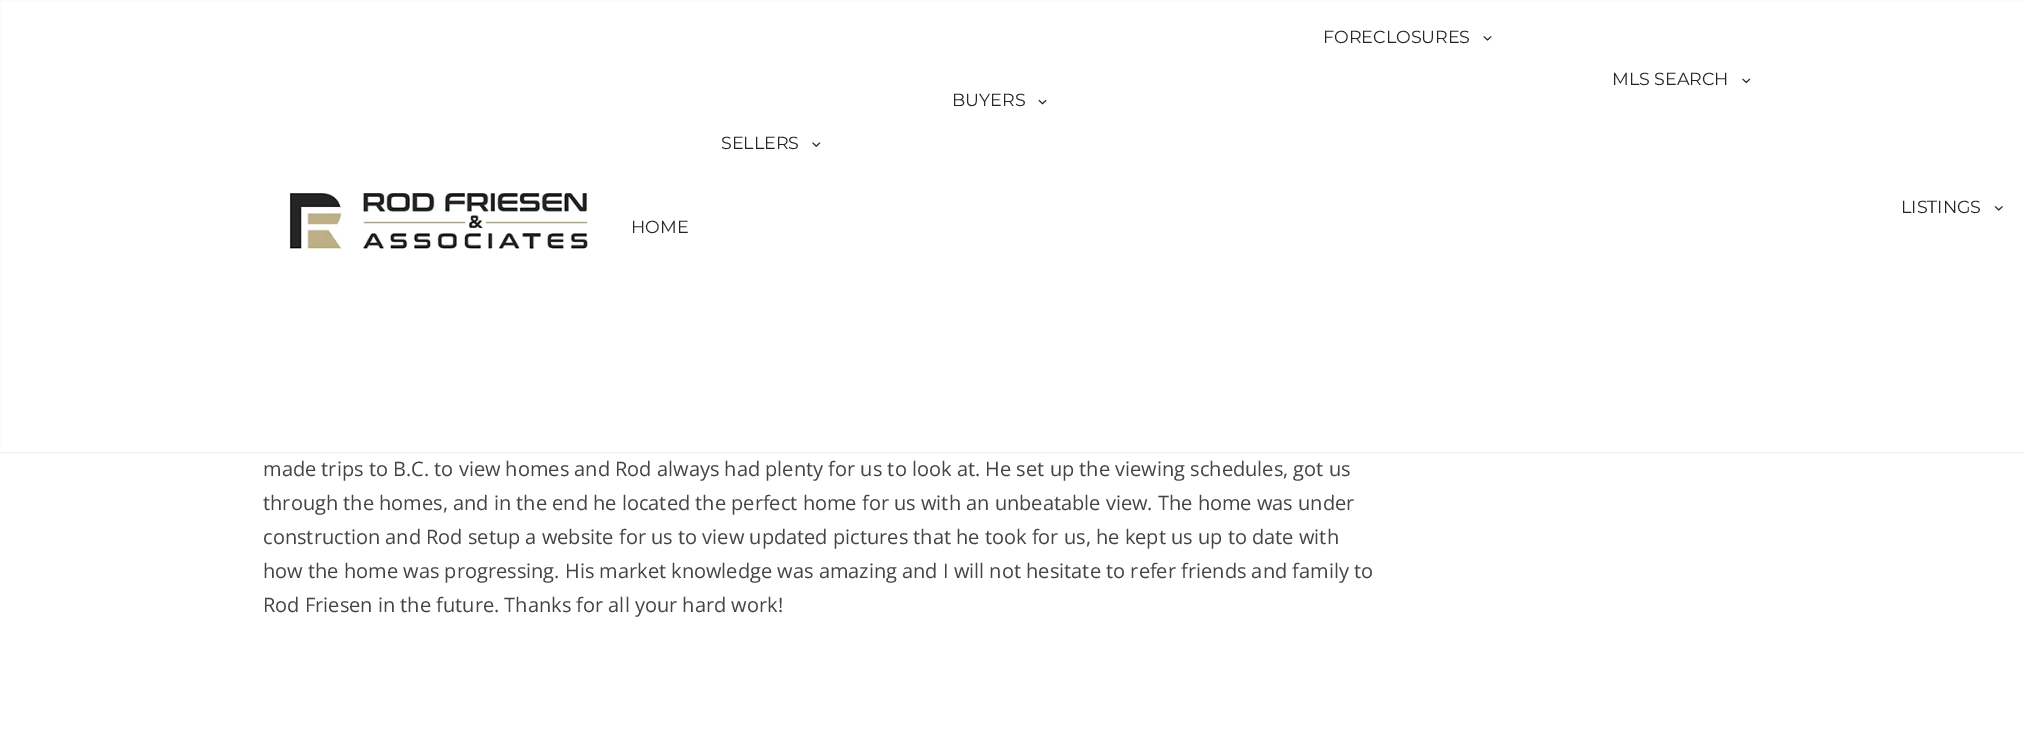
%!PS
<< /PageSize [2024 746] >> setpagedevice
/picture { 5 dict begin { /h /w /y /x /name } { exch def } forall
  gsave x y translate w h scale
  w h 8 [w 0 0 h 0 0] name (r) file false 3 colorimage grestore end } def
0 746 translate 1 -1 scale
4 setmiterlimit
1 setgray
0 0 2024 746 rectfill
0.949 setgray
-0.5 -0.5 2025 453 rectstroke
(img1.rgb) 289 193 300 57 picture
/Montserrat-Regular [17.5 0 0 -17.5 0 0] selectfont
0.145 0.145 0.149 setrgbcolor
1323 43 moveto (FORECLOSURES) show
(img2.rgb) 1483 36 9 5 picture
1612 85 moveto (MLS SEARCH) show
(img3.rgb) 1742 78 9 6 picture
952 106 moveto (BUYERS) show
(img4.rgb) 1038 99 9 6 picture
721 149 moveto (SELLERS) show
(img5.rgb) 812 142 9 5 picture
1901 213 moveto (LISTINGS) show
(img6.rgb) 1994 206 9 5 picture
631 233 moveto (HOME) show
/OpenSans-Regular [20 0 0 -20 0 0] selectfont
0.267 setgray
263 476 moveto (made trips to B.C. to view homes and Rod always had plenty for us to look at. He set up the viewing schedules, got us) show
263 510 moveto (through the homes, and in the end he located the perfect home for us with an unbeatable view. The home was under) show
263 544 moveto (construction and Rod setup a website for us to view updated pictures that he took for us, he kept us up to date with) show
263 578 moveto (how the home was progressing. His market knowledge was amazing and I will not hesitate to refer friends and family to) show
263 612 moveto (Rod Friesen in the future. Thanks for all your hard work!) show
showpage
